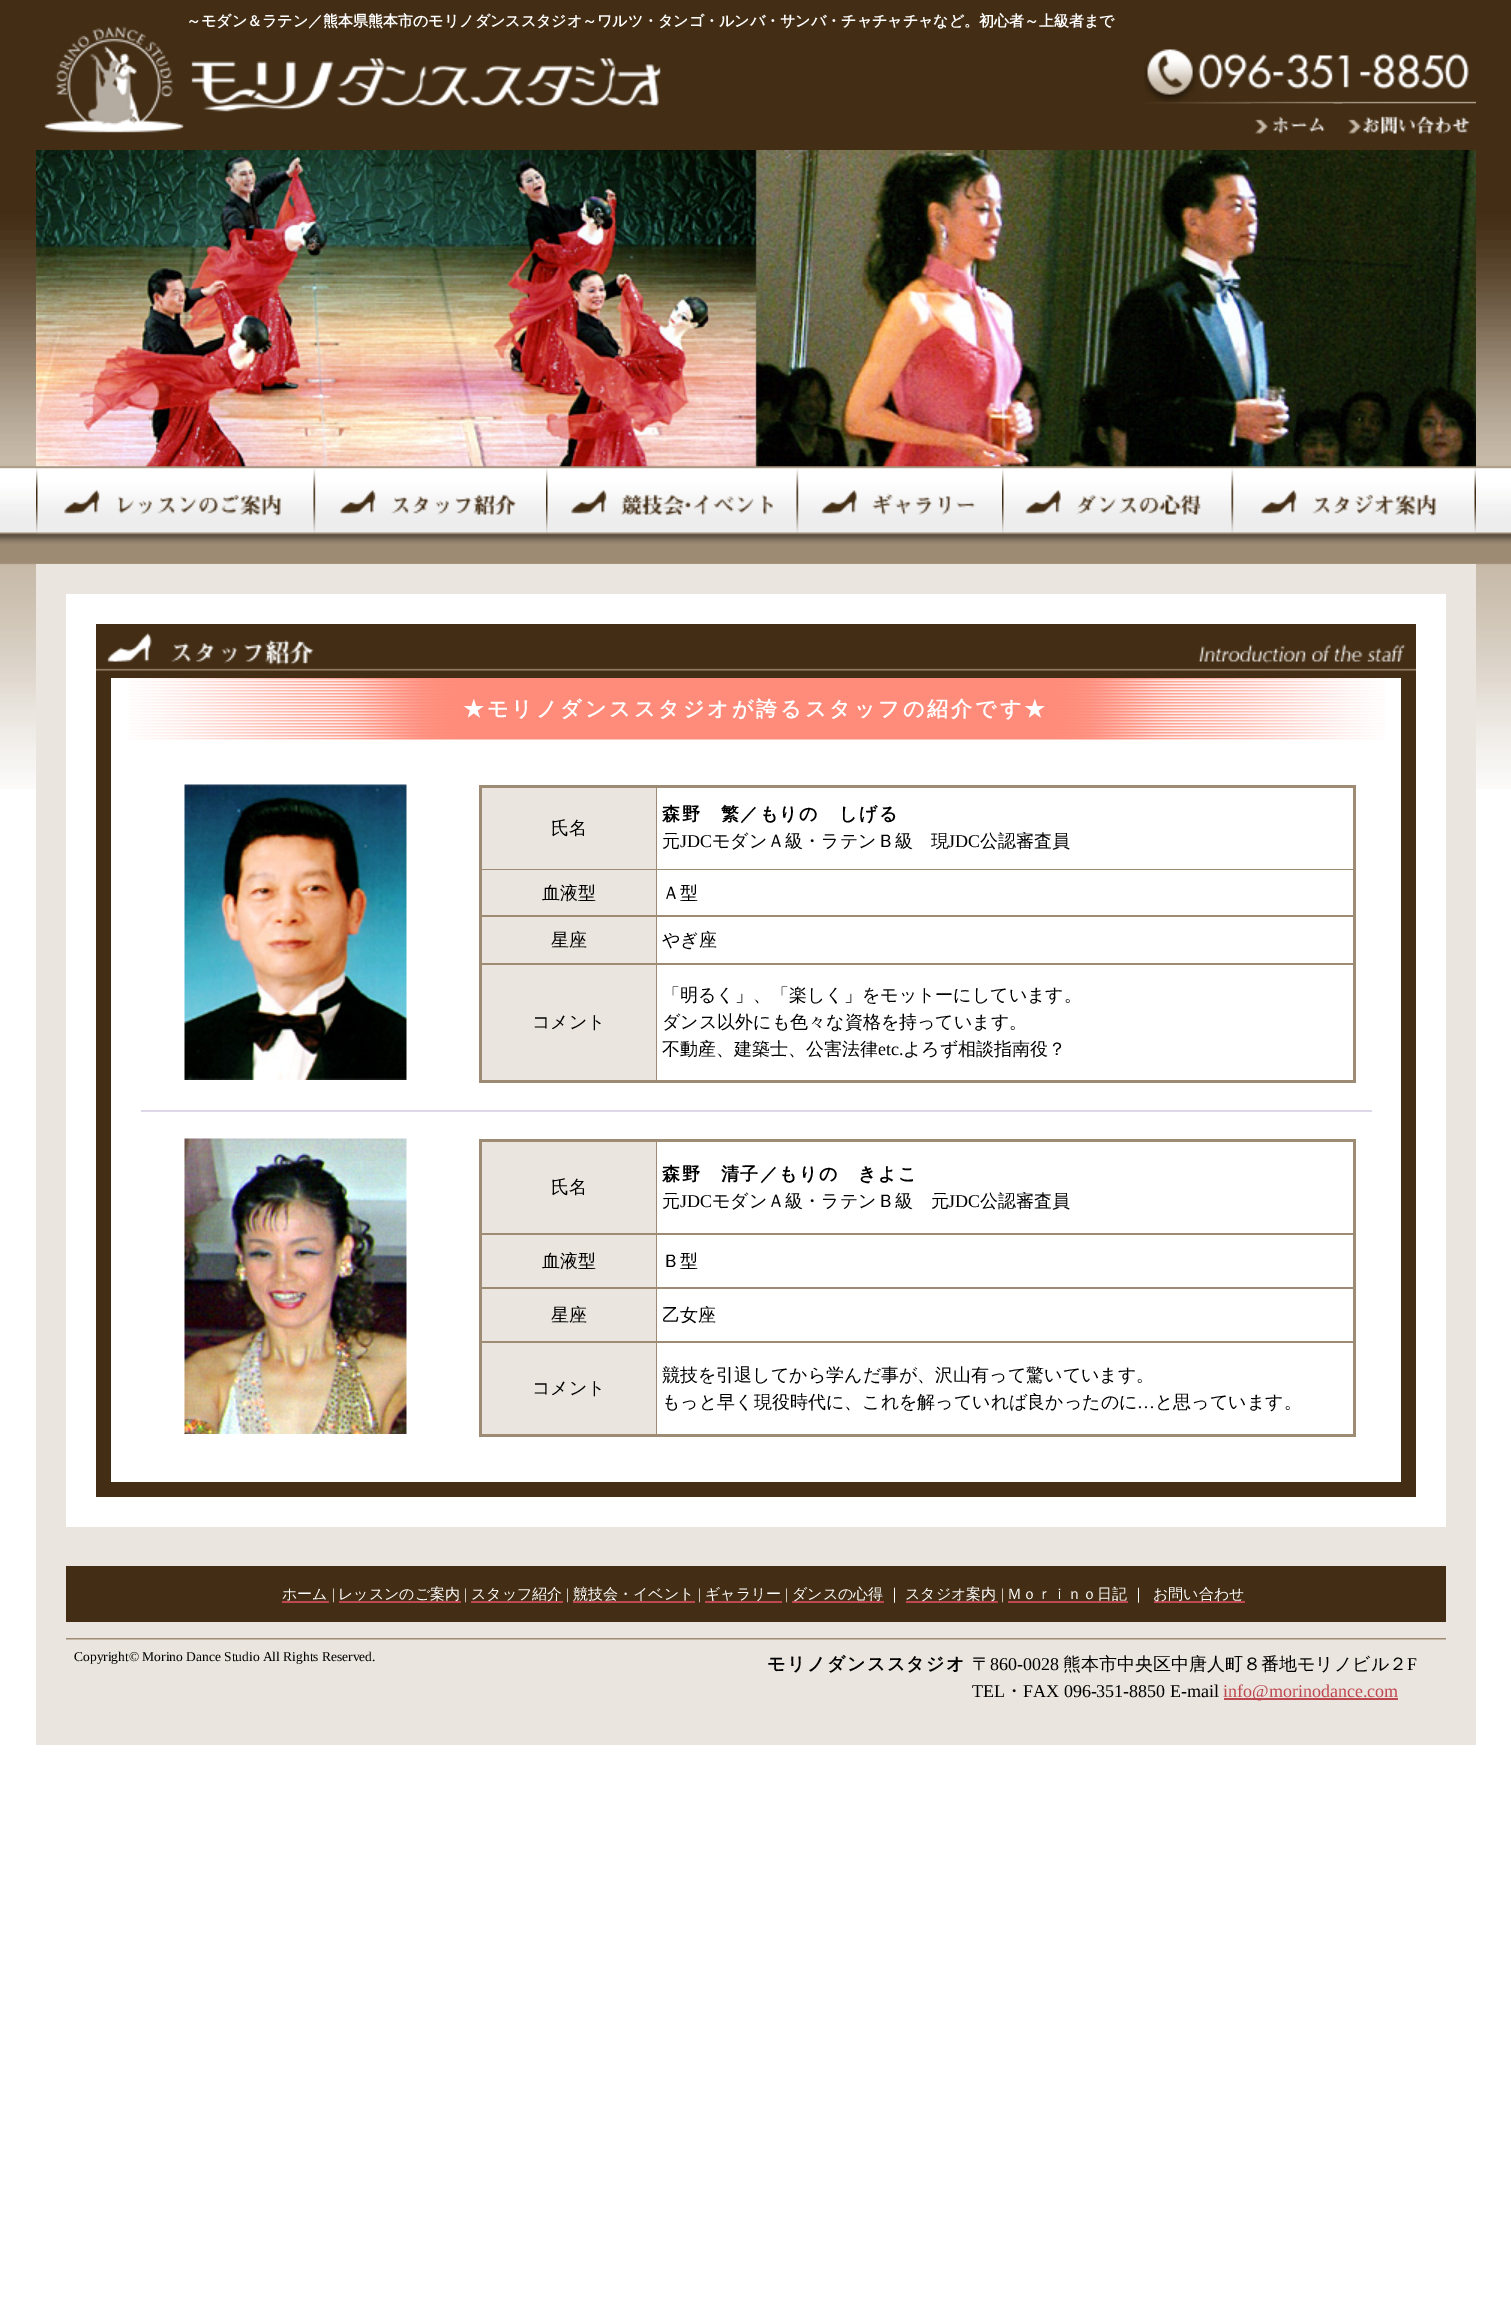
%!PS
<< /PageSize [1511 2318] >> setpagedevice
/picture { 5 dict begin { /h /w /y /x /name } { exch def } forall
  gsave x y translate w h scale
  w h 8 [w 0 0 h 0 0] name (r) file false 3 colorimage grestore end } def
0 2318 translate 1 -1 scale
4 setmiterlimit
1 setgray
0 0 1511 2318 rectfill
(img1.rgb) 0 0 1511 789 picture
/WenQuanYiZenHei-Bold [15 0 0 -15 0 0] selectfont
186 26 moveto (～モダン＆ラテン／熊本県熊本市のモリノダンススタジオ～ワルツ・タンゴ・ルンバ・サンバ・チャチャチャなど。初心者～上級者まで) show
(img2.rgb) 191 58 470 54 picture
(img3.rgb) 1144 49 332 55 picture
(img4.rgb) 1251 103 83 31 picture
(img5.rgb) 1342 103 134 31 picture
(img6.rgb) 44 26 140 107 picture
(img7.rgb) 36 150 1440 317 picture
(img8.rgb) 36 466 278 68 picture
(img9.rgb) 313 466 233 68 picture
(img10.rgb) 546 466 251 68 picture
(img11.rgb) 796 466 206 68 picture
(img12.rgb) 1002 466 230 68 picture
(img13.rgb) 1231 466 245 68 picture
0.918 0.898 0.871 setrgbcolor
36 564 1440 1181 rectfill
1 setgray
66 594 1380 933 rectfill
(img14.rgb) 96 624 1320 54 picture
0.263 0.176 0.078 setrgbcolor
96 678 15 804 rectfill
(img15.rgb) 129 678 1256 62 picture
/WenQuanYiZenHei-Bold [21 0 0 -21 0 0] selectfont
1 setgray
463 716 moveto 3 0 (★モリノダンススタジオが誇るスタッフの紹介です★) ashow
(img16.rgb) 184 784 223 296 picture
0.616 0.545 0.451 setrgbcolor
479 785 877 298 rectfill
0.918 0.898 0.871 setrgbcolor
482 788 174 81 rectfill
/WenQuanYiZenHei-Medium [18 0 0 -18 0 0] selectfont
0 setgray
551 834 moveto (氏名) show
1 setgray
657 788 696 81 rectfill
/WenQuanYiZenHei-Bold [18 0 0 -18 0 0] selectfont
0 setgray
662 820 moveto 1.5 0 (森野　繁／もりの　しげる) ashow
/WenQuanYiZenHei-Medium [18 0 0 -18 0 0] selectfont
662 847 moveto (元) show
/LiberationSerif-Regular [18 0 0 -18 0 0] selectfont
680 847 moveto (JDC) show
/WenQuanYiZenHei-Medium [18 0 0 -18 0 0] selectfont
712 847 moveto (モダンＡ級・ラテンＢ級　現) show
/LiberationSerif-Regular [18 0 0 -18 0 0] selectfont
948 847 moveto (JDC) show
/WenQuanYiZenHei-Medium [18 0 0 -18 0 0] selectfont
980 847 moveto (公認審査員) show
0.918 0.898 0.871 setrgbcolor
482 870 174 45 rectfill
0 setgray
542 899 moveto (血液型) show
1 setgray
657 870 696 45 rectfill
0 setgray
662 899 moveto (Ａ型) show
0.918 0.898 0.871 setrgbcolor
482 917 174 46 rectfill
0 setgray
551 946 moveto (星座) show
1 setgray
657 917 696 46 rectfill
0 setgray
662 946 moveto (やぎ座) show
0.918 0.898 0.871 setrgbcolor
482 965 174 115 rectfill
0 setgray
532 1028 moveto (コメント) show
1 setgray
657 965 696 115 rectfill
0 setgray
662 1001 moveto (「明るく」、「楽しく」をモットーにしています。) show
662 1028 moveto (ダンス以外にも色々な資格を持っています。) show
662 1055 moveto (不動産、建築士、公害法律) show
/LiberationSerif-Regular [18 0 0 -18 0 0] selectfont
878 1055 moveto (etc.) show
/WenQuanYiZenHei-Medium [18 0 0 -18 0 0] selectfont
903 1055 moveto (よろず相談指南役？) show
0.871 0.843 0.918 setrgbcolor
141 1110 1231 2 rectfill
(img17.rgb) 184 1138 223 296 picture
0.616 0.545 0.451 setrgbcolor
479 1139 877 298 rectfill
0.918 0.898 0.871 setrgbcolor
482 1142 174 91 rectfill
0 setgray
551 1193 moveto (氏名) show
1 setgray
657 1142 696 91 rectfill
/WenQuanYiZenHei-Bold [18 0 0 -18 0 0] selectfont
0 setgray
662 1180 moveto 1.5 0 (森野　清子／もりの　きよこ) ashow
/WenQuanYiZenHei-Medium [18 0 0 -18 0 0] selectfont
662 1207 moveto (元) show
/LiberationSerif-Regular [18 0 0 -18 0 0] selectfont
680 1207 moveto (JDC) show
/WenQuanYiZenHei-Medium [18 0 0 -18 0 0] selectfont
712 1207 moveto (モダンＡ級・ラテンＢ級　元) show
/LiberationSerif-Regular [18 0 0 -18 0 0] selectfont
948 1207 moveto (JDC) show
/WenQuanYiZenHei-Medium [18 0 0 -18 0 0] selectfont
980 1207 moveto (公認審査員) show
0.918 0.898 0.871 setrgbcolor
482 1235 174 52 rectfill
0 setgray
542 1267 moveto (血液型) show
1 setgray
657 1235 696 52 rectfill
0 setgray
662 1267 moveto (Ｂ型) show
0.918 0.898 0.871 setrgbcolor
482 1289 174 52 rectfill
0 setgray
551 1321 moveto (星座) show
1 setgray
657 1289 696 52 rectfill
0 setgray
662 1321 moveto (乙女座) show
0.918 0.898 0.871 setrgbcolor
482 1343 174 91 rectfill
0 setgray
532 1394 moveto (コメント) show
1 setgray
657 1343 696 91 rectfill
0 setgray
662 1381 moveto (競技を引退してから学んだ事が、沢山有って驚いています。) show
662 1408 moveto (もっと早く現役時代に、これを解っていれば良かったのに) show
/LiberationSerif-Regular [18 0 0 -18 0 0] selectfont
1137 1408 moveto (…) show
/WenQuanYiZenHei-Medium [18 0 0 -18 0 0] selectfont
1155 1408 moveto (と思っています。) show
0.263 0.176 0.078 setrgbcolor
1401 678 15 804 rectfill
96 1482 1320 15 rectfill
66 1566 1380 56 rectfill
/WenQuanYiZenHei-Medium [15 0 0 -15 0 0] selectfont
1 setgray
282 1599 moveto (ホーム) show
0.745 0.282 0.314 setrgbcolor
282 1601 47 2 rectfill
/LiberationSerif-Regular [15 0 0 -15 0 0] selectfont
1 setgray
332 1599 moveto (|) show
0.745 0.282 0.314 setrgbcolor
339 1601 122 2 rectfill
/WenQuanYiZenHei-Medium [15 0 0 -15 0 0] selectfont
1 setgray
338 1599 moveto (レッスンのご案内) show
/LiberationSerif-Regular [15 0 0 -15 0 0] selectfont
464 1599 moveto (|) show
0.745 0.282 0.314 setrgbcolor
471 1601 92 2 rectfill
/WenQuanYiZenHei-Medium [15 0 0 -15 0 0] selectfont
1 setgray
471 1599 moveto (スタッフ紹介) show
/LiberationSerif-Regular [15 0 0 -15 0 0] selectfont
566 1599 moveto (|) show
0.745 0.282 0.314 setrgbcolor
573 1601 122 2 rectfill
/WenQuanYiZenHei-Medium [15 0 0 -15 0 0] selectfont
1 setgray
573 1599 moveto (競技会・イベント) show
/LiberationSerif-Regular [15 0 0 -15 0 0] selectfont
698 1599 moveto (|) show
0.745 0.282 0.314 setrgbcolor
705 1601 77 2 rectfill
/WenQuanYiZenHei-Medium [15 0 0 -15 0 0] selectfont
1 setgray
705 1599 moveto (ギャラリー) show
/LiberationSerif-Regular [15 0 0 -15 0 0] selectfont
785 1599 moveto (|) show
0.745 0.282 0.314 setrgbcolor
792 1601 92 2 rectfill
/WenQuanYiZenHei-Medium [15 0 0 -15 0 0] selectfont
1 setgray
792 1599 moveto (ダンスの心得) show
887 1599 moveto (｜) show
0.745 0.282 0.314 setrgbcolor
906 1601 92 2 rectfill
1 setgray
905 1599 moveto (スタジオ案内) show
/LiberationSerif-Regular [15 0 0 -15 0 0] selectfont
1001 1599 moveto (|) show
/WenQuanYiZenHei-Medium [15 0 0 -15 0 0] selectfont
1007 1599 moveto (Ｍｏｒｉｎｏ日記) show
0.745 0.282 0.314 setrgbcolor
1008 1601 120 2 rectfill
1 setgray
1131 1599 moveto (｜) show
0.745 0.282 0.314 setrgbcolor
1154 1601 91 2 rectfill
1 setgray
1153 1599 moveto (お問い合わせ) show
(img18.rgb) 66 1638 1380 2 picture
/LiberationSerif-Regular [13.5 0 0 -13.5 0 0] selectfont
0 setgray
74 1661 moveto (Copyright© Morino Dance Studio All Rights Reserved.) show
/WenQuanYiZenHei-Bold [18 0 0 -18 0 0] selectfont
767 1670 moveto 1.5 0 (モリノダンススタジオ) ashow
/WenQuanYiZenHei-Medium [18 0 0 -18 0 0] selectfont
972 1670 moveto (〒) show
/LiberationSerif-Regular [18 0 0 -18 0 0] selectfont
990 1670 moveto (860-0028) show
/WenQuanYiZenHei-Medium [18 0 0 -18 0 0] selectfont
1063 1670 moveto (熊本市中央区中唐人町８番地モリノビル２) show
/LiberationSerif-Regular [18 0 0 -18 0 0] selectfont
1407 1670 moveto (F) show
972 1697 moveto (TEL) show
/WenQuanYiZenHei-Medium [18 0 0 -18 0 0] selectfont
1005 1697 moveto (・) show
/LiberationSerif-Regular [18 0 0 -18 0 0] selectfont
1023 1697 moveto (FAX 096-351-8850 E-mail) show
0.745 0.282 0.314 setrgbcolor
1224 1698 174 2 rectfill
1223 1697 moveto (info@morinodance.com) show
showpage
